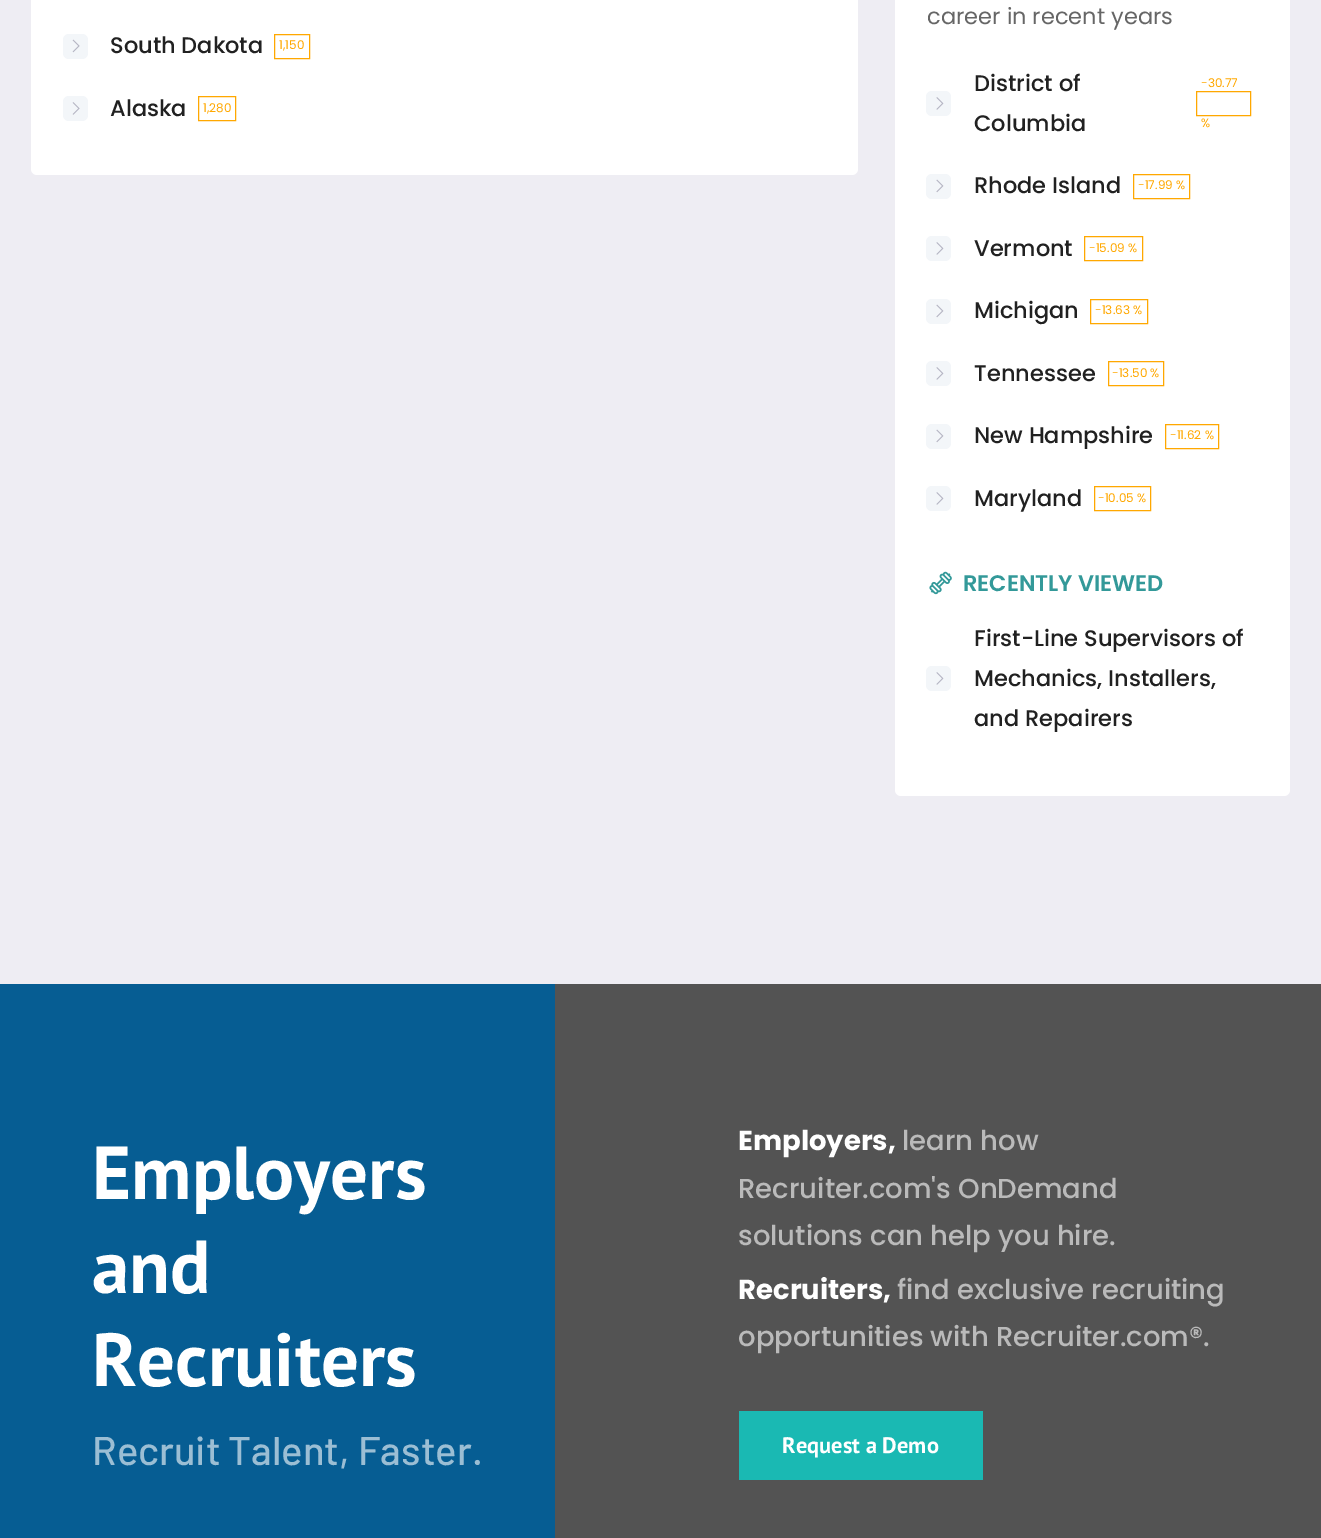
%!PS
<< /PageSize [1321 1538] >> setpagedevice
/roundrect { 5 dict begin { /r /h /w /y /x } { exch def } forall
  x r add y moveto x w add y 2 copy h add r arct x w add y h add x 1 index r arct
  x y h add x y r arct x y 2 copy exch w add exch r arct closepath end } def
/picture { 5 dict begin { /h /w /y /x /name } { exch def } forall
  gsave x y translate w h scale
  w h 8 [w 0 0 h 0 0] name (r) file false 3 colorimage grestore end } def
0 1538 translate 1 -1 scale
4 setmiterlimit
0.933 0.929 0.953 setrgbcolor
0 0 1321 1538 rectfill
1 setgray
31 -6 827 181 6 roundrect fill
0.953 0.965 0.976 setrgbcolor
63 34 25 25 6 roundrect fill
(img1.rgb) 72 39 8 14 picture
/Poppins-Medium [22.5 0 0 -22.5 0 0] selectfont
0.129 setgray
110 53 moveto (South Dakota) show
1 0.659 0 setrgbcolor
274.5 34.5 35 24 rectstroke
/Poppins-Regular [12 0 0 -12 0 0] selectfont
279 49 moveto (1,150) show
0.953 0.965 0.976 setrgbcolor
63 96 25 25 6 roundrect fill
(img2.rgb) 72 102 8 13 picture
/Poppins-Medium [22.5 0 0 -22.5 0 0] selectfont
0.129 setgray
110 116 moveto (Alaska) show
1 0.659 0 setrgbcolor
198.5 96.5 37 24 rectstroke
/Poppins-Regular [12 0 0 -12 0 0] selectfont
203 112 moveto (1,280) show
1 setgray
895 -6 395 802 6 roundrect fill
/Poppins-Regular [22.5 0 0 -22.5 0 0] selectfont
0.4 setgray
927 24 moveto (career in recent years) show
0.953 0.965 0.976 setrgbcolor
926 91 25 25 6 roundrect fill
(img3.rgb) 936 97 8 13 picture
/Poppins-Medium [22.5 0 0 -22.5 0 0] selectfont
0.129 setgray
974 91 moveto (District of) show
974 131 moveto (Columbia) show
1 0.659 0 setrgbcolor
1196.5 91.5 54 24 rectstroke
/Poppins-Regular [12 0 0 -12 0 0] selectfont
1201 87 moveto (-30.77) show
1201 127 moveto (%) show
0.953 0.965 0.976 setrgbcolor
926 174 25 25 6 roundrect fill
(img4.rgb) 936 179 8 14 picture
/Poppins-Medium [22.5 0 0 -22.5 0 0] selectfont
0.129 setgray
974 193 moveto (Rhode Island) show
1 0.659 0 setrgbcolor
1133.5 174.5 56 24 rectstroke
/Poppins-Regular [12 0 0 -12 0 0] selectfont
1138 189 moveto (-17.99 %) show
0.953 0.965 0.976 setrgbcolor
926 236 25 25 6 roundrect fill
(img3.rgb) 936 242 8 13 picture
/Poppins-Medium [22.5 0 0 -22.5 0 0] selectfont
0.129 setgray
974 256 moveto (Vermont) show
1 0.659 0 setrgbcolor
1084.5 236.5 58 24 rectstroke
/Poppins-Regular [12 0 0 -12 0 0] selectfont
1089 252 moveto (-15.09 %) show
0.953 0.965 0.976 setrgbcolor
926 299 25 25 6 roundrect fill
(img4.rgb) 936 304 8 14 picture
/Poppins-Medium [22.5 0 0 -22.5 0 0] selectfont
0.129 setgray
974 318 moveto (Michigan) show
1 0.659 0 setrgbcolor
1090.5 299.5 57 24 rectstroke
/Poppins-Regular [12 0 0 -12 0 0] selectfont
1095 314 moveto (-13.63 %) show
0.953 0.965 0.976 setrgbcolor
926 361 25 25 6 roundrect fill
(img3.rgb) 936 367 8 13 picture
/Poppins-Medium [22.5 0 0 -22.5 0 0] selectfont
0.129 setgray
974 381 moveto (Tennessee) show
1 0.659 0 setrgbcolor
1108.5 361.5 55 24 rectstroke
/Poppins-Regular [12 0 0 -12 0 0] selectfont
1112 377 moveto (-13.50 %) show
0.953 0.965 0.976 setrgbcolor
926 424 25 25 6 roundrect fill
(img4.rgb) 936 429 8 14 picture
/Poppins-Medium [22.5 0 0 -22.5 0 0] selectfont
0.129 setgray
974 443 moveto (New Hampshire) show
1 0.659 0 setrgbcolor
1165.5 424.5 53 24 rectstroke
/Poppins-Regular [12 0 0 -12 0 0] selectfont
1170 439 moveto (-11.62 %) show
0.953 0.965 0.976 setrgbcolor
926 486 25 25 6 roundrect fill
(img3.rgb) 936 492 8 13 picture
/Poppins-Medium [22.5 0 0 -22.5 0 0] selectfont
0.129 setgray
974 506 moveto (Maryland) show
1 0.659 0 setrgbcolor
1094.5 486.5 56 24 rectstroke
/Poppins-Regular [12 0 0 -12 0 0] selectfont
1098 502 moveto (-10.05 %) show
(img5.rgb) 929 571 23 24 picture
/Poppins-SemiBold [22.5 0 0 -22.5 0 0] selectfont
0.2 0.6 0.6 setrgbcolor
963 591 moveto (RECENTLY VIEWED) show
0.953 0.965 0.976 setrgbcolor
926 666 25 25 6 roundrect fill
(img3.rgb) 936 672 8 13 picture
/Poppins-Medium [22.5 0 0 -22.5 0 0] selectfont
0.129 setgray
974 646 moveto (First-Line Supervisors of) show
974 686 moveto (Mechanics, Installers,) show
974 726 moveto (and Repairers) show
0.325 setgray
555 984 766 554 rectfill
0.024 0.365 0.576 setrgbcolor
0 984 555 554 rectfill
/PTSans-Bold [75 0 0 -75 0 0] selectfont
1 setgray
92 1199 moveto (Employers) show
92 1293 moveto (and) show
92 1386 moveto (Recruiters) show
/Barlow-Medium [40 0 0 -40 0 0] selectfont
0.608 0.745 0.831 setrgbcolor
92 1465 moveto (Recruit Talent, Faster.) show
/Poppins-Bold [27.5 0 0 -27.5 0 0] selectfont
1 setgray
738 1150 moveto (Employers,) show
/Poppins-Medium [27.5 0 0 -27.5 0 0] selectfont
0.729 setgray
902 1150 moveto (learn how) show
738 1198 moveto (Recruiter.com's OnDemand) show
738 1245 moveto (solutions can help you hire.) show
/Poppins-Bold [27.5 0 0 -27.5 0 0] selectfont
1 setgray
738 1299 moveto (Recruiters,) show
/Poppins-Medium [27.5 0 0 -27.5 0 0] selectfont
0.729 setgray
897 1299 moveto (find exclusive recruiting) show
738 1346 moveto (opportunities with Recruiter.com®.) show
0.102 0.725 0.702 setrgbcolor
739 1411 244 69 rectfill
/PTSans-Bold [22.5 0 0 -22.5 0 0] selectfont
1 setgray
782 1453 moveto (Request a Demo) show
showpage
